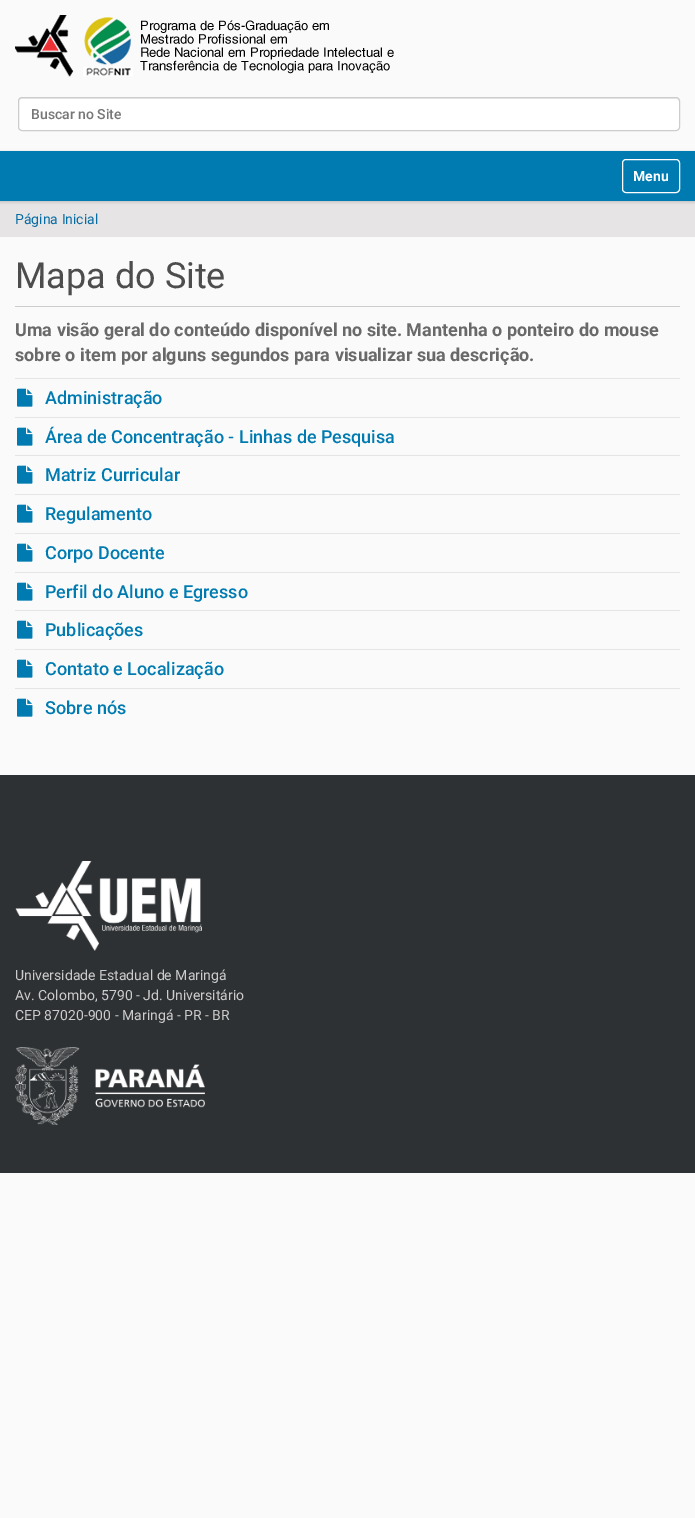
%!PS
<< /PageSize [695 1518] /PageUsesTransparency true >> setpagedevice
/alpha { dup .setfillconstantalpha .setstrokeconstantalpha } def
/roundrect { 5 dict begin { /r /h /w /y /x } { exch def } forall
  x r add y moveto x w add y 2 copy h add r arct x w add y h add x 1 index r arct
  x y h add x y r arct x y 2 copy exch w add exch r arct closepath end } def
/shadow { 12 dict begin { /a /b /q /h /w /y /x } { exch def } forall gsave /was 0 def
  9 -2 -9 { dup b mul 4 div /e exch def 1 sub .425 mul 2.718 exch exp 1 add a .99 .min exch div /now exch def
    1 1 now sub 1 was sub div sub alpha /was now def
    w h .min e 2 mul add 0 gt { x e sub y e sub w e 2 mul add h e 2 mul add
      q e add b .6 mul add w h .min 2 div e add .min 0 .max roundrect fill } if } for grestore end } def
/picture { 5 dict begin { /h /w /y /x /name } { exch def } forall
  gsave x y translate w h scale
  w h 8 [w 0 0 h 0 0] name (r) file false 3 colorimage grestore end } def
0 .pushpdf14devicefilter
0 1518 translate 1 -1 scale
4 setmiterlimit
0.98 setgray
0 0 695 1518 rectfill
(img1.rgb) 15 15 379 62 picture
1 setgray
18 97 662 34 4 roundrect fill
0.925 setgray
newpath 22 99 moveto 676 99 lineto 678 99 679 100 679 102 curveto 679 101 lineto 679 99 678 98 676 98 curveto 22 98 lineto 20 98 19 99 19 101 curveto 19 102 lineto 19 100 20 99 22 99 curveto closepath fill
0.8 setgray
18.5 97.5 661 33 3.5 roundrect stroke
/Roboto-Medium [14 0 0 -14 0 0] selectfont
0.467 setgray
31 119 moveto (Buscar no Site) show
0.902 0.894 0.894 setrgbcolor
0 201 695 36 rectfill
0 setgray
0 152 695 50 0 1.5 0.17 shadow
0 0.482 0.694 setrgbcolor
0 151 695 50 rectfill
1 setgray
622.5 159.5 57 33 3.5 roundrect stroke
/Roboto-Bold [14 0 0 -14 0 0] selectfont
633 181 moveto (Menu) show
/Roboto-Regular [14 0 0 -14 0 0] selectfont
0.031 0.424 0.639 setrgbcolor
15 224 moveto (Página Inicial) show
0.8 setgray
15 306 665 1 rectfill
/Roboto-Regular [36 0 0 -36 0 0] selectfont
0.302 setgray
15 288 moveto (Mapa do Site) show
/Roboto-Bold [18 0 0 -18 0 0] selectfont
0.412 setgray
15 336 moveto (Uma visão geral do conteúdo disponível no site. Mantenha o ponteiro do mouse) show
15 361 moveto (sobre o item por alguns segundos para visualizar sua descrição.) show
0.898 setgray
15 378 665 1 rectfill
(img2.rgb) 17 388 16 19 picture
/Roboto-Medium [18 0 0 -18 0 0] selectfont
0 0.482 0.694 setrgbcolor
45 404 moveto (Administração) show
0.898 setgray
15 417 665 1 rectfill
(img2.rgb) 17 427 16 19 picture
0 0.482 0.694 setrgbcolor
45 443 moveto (Área de Concentração - Linhas de Pesquisa) show
0.898 setgray
15 455 665 1 rectfill
(img2.rgb) 17 465 16 19 picture
0 0.482 0.694 setrgbcolor
45 481 moveto (Matriz Curricular) show
0.898 setgray
15 494 665 1 rectfill
(img2.rgb) 17 504 16 19 picture
0 0.482 0.694 setrgbcolor
45 520 moveto (Regulamento) show
0.898 setgray
15 533 665 1 rectfill
(img2.rgb) 17 543 16 19 picture
0 0.482 0.694 setrgbcolor
45 559 moveto (Corpo Docente) show
0.898 setgray
15 572 665 1 rectfill
(img2.rgb) 17 582 16 19 picture
0 0.482 0.694 setrgbcolor
45 598 moveto (Perfil do Aluno e Egresso) show
0.898 setgray
15 610 665 1 rectfill
(img2.rgb) 17 620 16 19 picture
0 0.482 0.694 setrgbcolor
45 636 moveto (Publicações) show
0.898 setgray
15 649 665 1 rectfill
(img2.rgb) 17 659 16 19 picture
0 0.482 0.694 setrgbcolor
45 675 moveto (Contato e Localização) show
0.898 setgray
15 688 665 1 rectfill
(img2.rgb) 17 698 16 19 picture
0 0.482 0.694 setrgbcolor
45 714 moveto (Sobre nós) show
0.18 0.192 0.2 setrgbcolor
0 775 695 398 rectfill
(img3.rgb) 15 861 187 90 picture
/Roboto-Regular [14 0 0 -14 0 0] selectfont
0.8 setgray
15 980 moveto (Universidade Estadual de Maringá) show
15 1000 moveto (Av. Colombo, 5790 - Jd. Universitário) show
15 1020 moveto (CEP 87020-900 - Maringá - PR - BR) show
(img4.rgb) 15 1047 190 78 picture
.poppdf14devicefilter showpage
